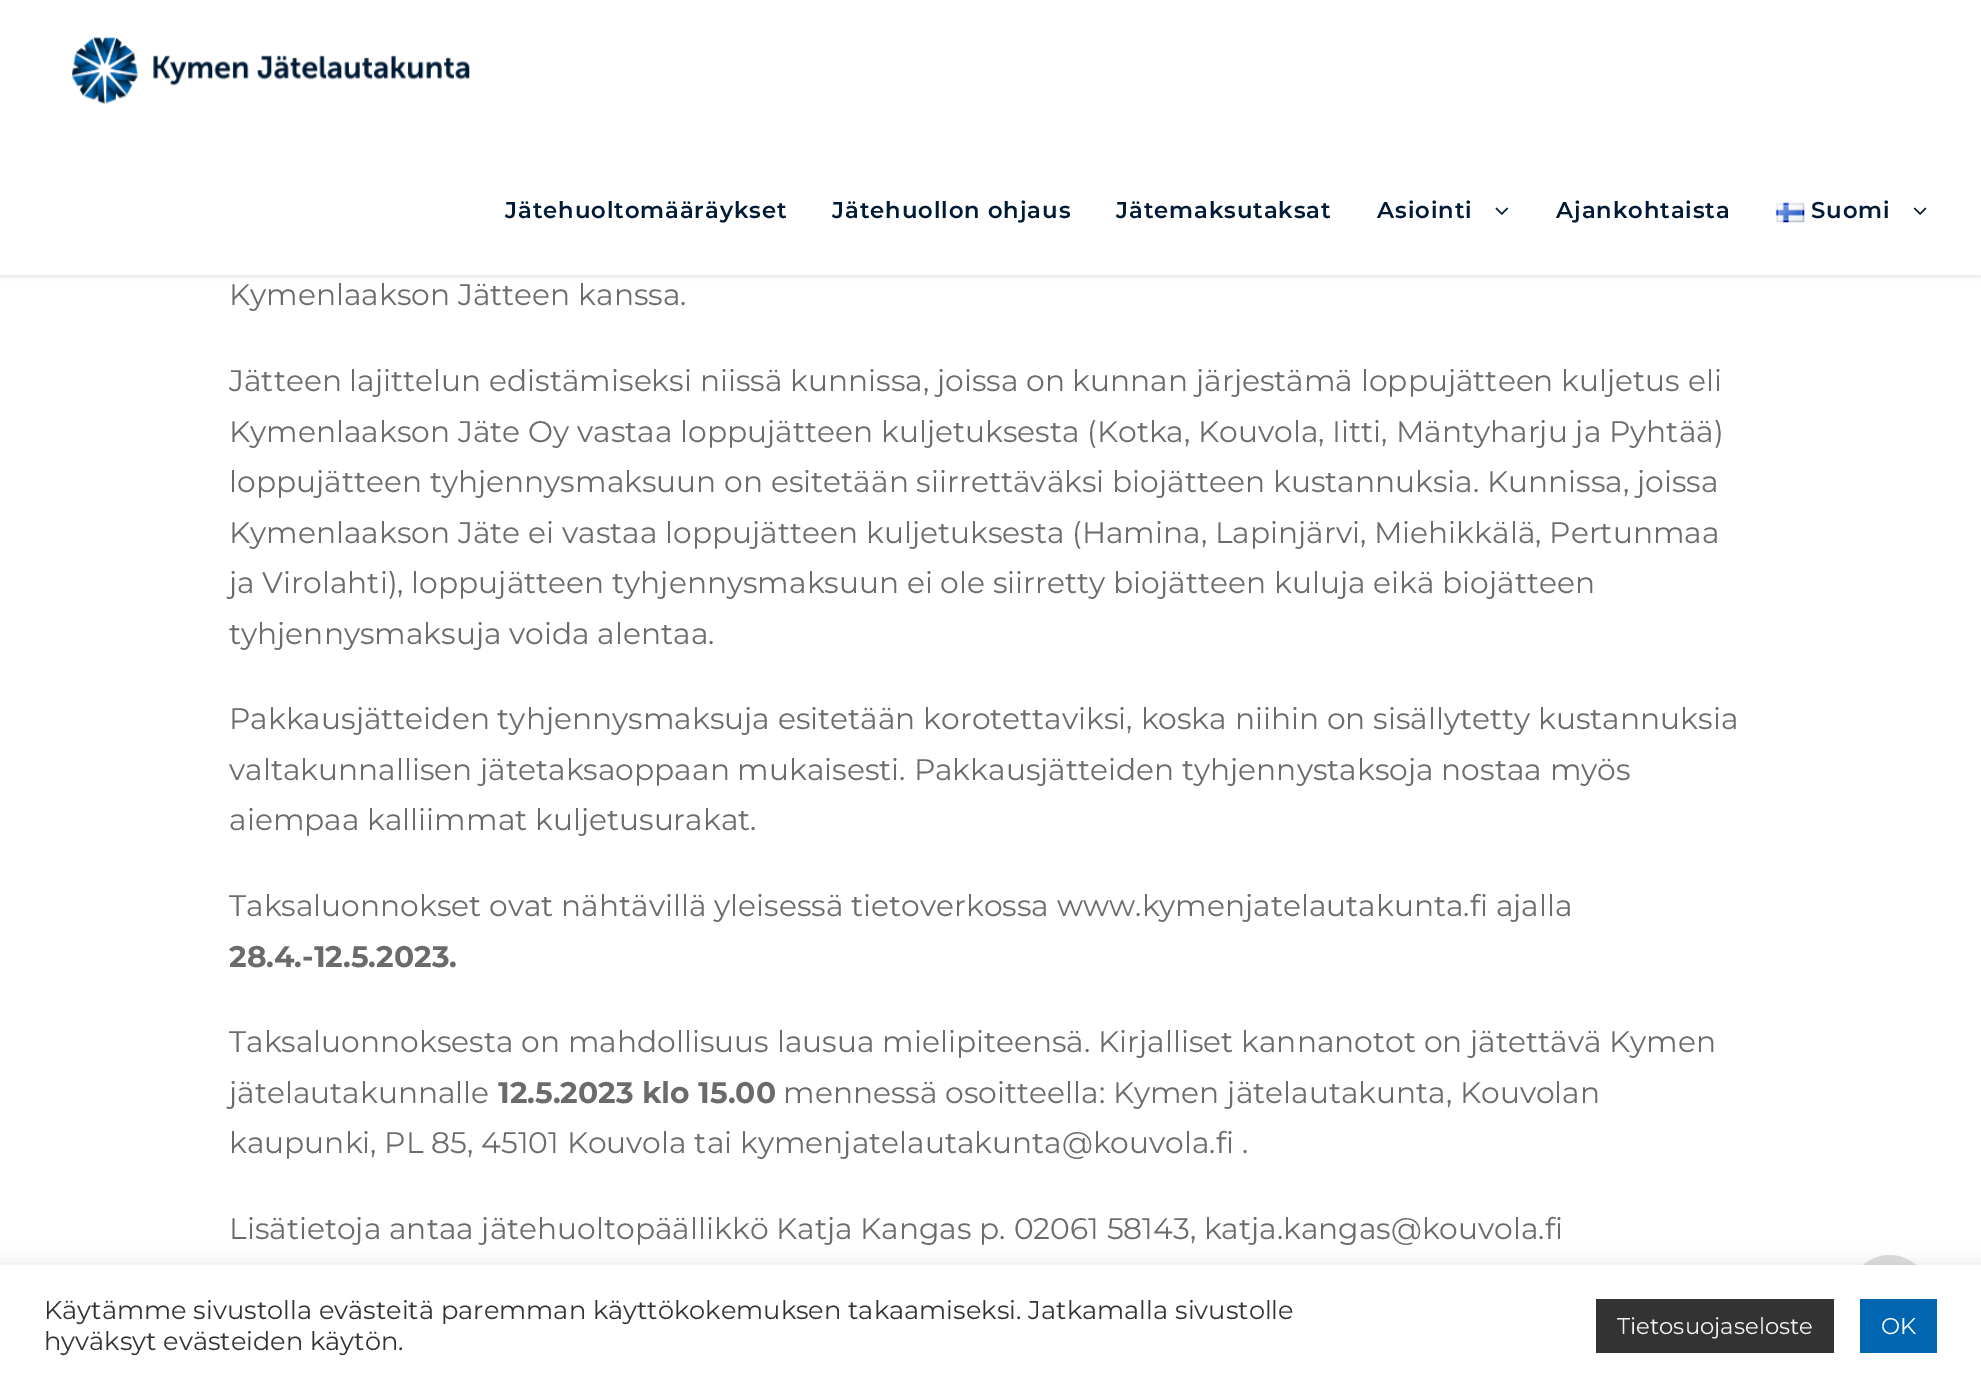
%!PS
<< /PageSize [1981 1386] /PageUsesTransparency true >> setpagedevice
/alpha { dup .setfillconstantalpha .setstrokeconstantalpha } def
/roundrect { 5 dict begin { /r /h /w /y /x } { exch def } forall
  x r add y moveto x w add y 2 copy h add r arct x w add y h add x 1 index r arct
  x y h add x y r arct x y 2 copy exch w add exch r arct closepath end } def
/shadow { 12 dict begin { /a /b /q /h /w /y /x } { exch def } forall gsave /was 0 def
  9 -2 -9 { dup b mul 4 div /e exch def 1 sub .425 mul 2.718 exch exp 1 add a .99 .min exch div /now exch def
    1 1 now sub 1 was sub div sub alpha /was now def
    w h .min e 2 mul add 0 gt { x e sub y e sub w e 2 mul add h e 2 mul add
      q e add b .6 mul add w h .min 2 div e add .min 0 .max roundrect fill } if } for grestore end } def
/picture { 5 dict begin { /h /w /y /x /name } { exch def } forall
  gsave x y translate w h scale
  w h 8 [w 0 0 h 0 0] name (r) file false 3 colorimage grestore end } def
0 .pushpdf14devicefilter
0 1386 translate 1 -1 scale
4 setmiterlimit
1 setgray
0 0 1981 1386 rectfill
0 setgray
0 2 1981 275 0 2 0.1 shadow
1 setgray
0 0 1981 275 rectfill
(img1.rgb) 71 37 399 67 picture
/Montserrat-SemiBold [22.75 0 0 -22.75 0 0] selectfont
0 0.106 0.212 setrgbcolor
505 218 moveto 0.9 0 (Jätehuoltomääräykset) ashow
832 218 moveto 0.9 0 (Jätehuollon ohjaus) ashow
1116 218 moveto 0.9 0 (Jätemaksutaksat) ashow
1377 218 moveto 0.9 0 (Asiointi) ashow
(img2.rgb) 1495 207 14 8 picture
1556 218 moveto 0.9 0 (Ajankohtaista) ashow
(img3.rgb) 1775 202 30 21 picture
1811 218 moveto 0.9 0 (Suomi) ashow
(img4.rgb) 1913 207 14 8 picture
/Montserrat-Regular [29.75 0 0 -29.75 0 0] selectfont
0.42 setgray
229 305 moveto (Kymenlaakson Jätteen kanssa.) show
229 391 moveto (Jätteen lajittelun edistämiseksi niissä kunnissa, joissa on kunnan järjestämä loppujätteen kuljetus eli) show
229 442 moveto (Kymenlaakson Jäte Oy vastaa loppujätteen kuljetuksesta \(Kotka, Kouvola, Iitti, Mäntyharju ja Pyhtää\)) show
229 492 moveto (loppujätteen tyhjennysmaksuun on esitetään siirrettäväksi biojätteen kustannuksia. Kunnissa, joissa) show
229 543 moveto (Kymenlaakson Jäte ei vastaa loppujätteen kuljetuksesta \(Hamina, Lapinjärvi, Miehikkälä, Pertunmaa) show
229 593 moveto (ja Virolahti\), loppujätteen tyhjennysmaksuun ei ole siirretty biojätteen kuluja eikä biojätteen) show
229 644 moveto (tyhjennysmaksuja voida alentaa.) show
229 729 moveto (Pakkausjätteiden tyhjennysmaksuja esitetään korotettaviksi, koska niihin on sisällytetty kustannuksia) show
229 780 moveto (valtakunnallisen jätetaksaoppaan mukaisesti. Pakkausjätteiden tyhjennystaksoja nostaa myös) show
229 830 moveto (aiempaa kalliimmat kuljetusurakat.) show
229 916 moveto (Taksaluonnokset ovat nähtävillä yleisessä tietoverkossa www.kymenjatelautakunta.fi ajalla) show
/Montserrat-Bold [29.75 0 0 -29.75 0 0] selectfont
229 967 moveto (28.4.-12.5.2023.) show
/Montserrat-Regular [29.75 0 0 -29.75 0 0] selectfont
229 1052 moveto (Taksaluonnoksesta on mahdollisuus lausua mielipiteensä. Kirjalliset kannanotot on jätettävä Kymen) show
229 1103 moveto (jätelautakunnalle) show
/Montserrat-Bold [29.75 0 0 -29.75 0 0] selectfont
498 1103 moveto (12.5.2023 klo 15.00) show
/Montserrat-Regular [29.75 0 0 -29.75 0 0] selectfont
783 1103 moveto (mennessä osoitteella: Kymen jätelautakunta, Kouvolan) show
229 1153 moveto (kaupunki, PL 85, 45101 Kouvola tai kymenjatelautakunta@kouvola.fi .) show
229 1239 moveto (Lisätietoja antaa jätehuoltopäällikkö Katja Kangas p. 02061 58143, katja.kangas@kouvola.fi) show
0.859 setgray
newpath 1889.5 1294.5 39.5 0 360 arc closepath fill
0.675 0.671 0.671 setrgbcolor
0 1264 1981 120 0 9 0.3 shadow
1 setgray
0 1265 1981 121 rectfill
/Montserrat-Regular [25.65 0 0 -25.65 0 0] selectfont
0.2 setgray
44 1319 moveto (Käytämme sivustolla evästeitä paremman käyttökokemuksen takaamiseksi. Jatkamalla sivustolle) show
44 1350 moveto (hyväksyt evästeiden käytön.) show
1596 1299 238 54 rectfill
/Montserrat-Regular [22.75 0 0 -22.75 0 0] selectfont
0.957 setgray
1617 1334 moveto (Tietosuojaseloste) show
0 0.4 0.698 setrgbcolor
1860 1299 77 54 rectfill
1 setgray
1881 1334 moveto (OK) show
.poppdf14devicefilter showpage
